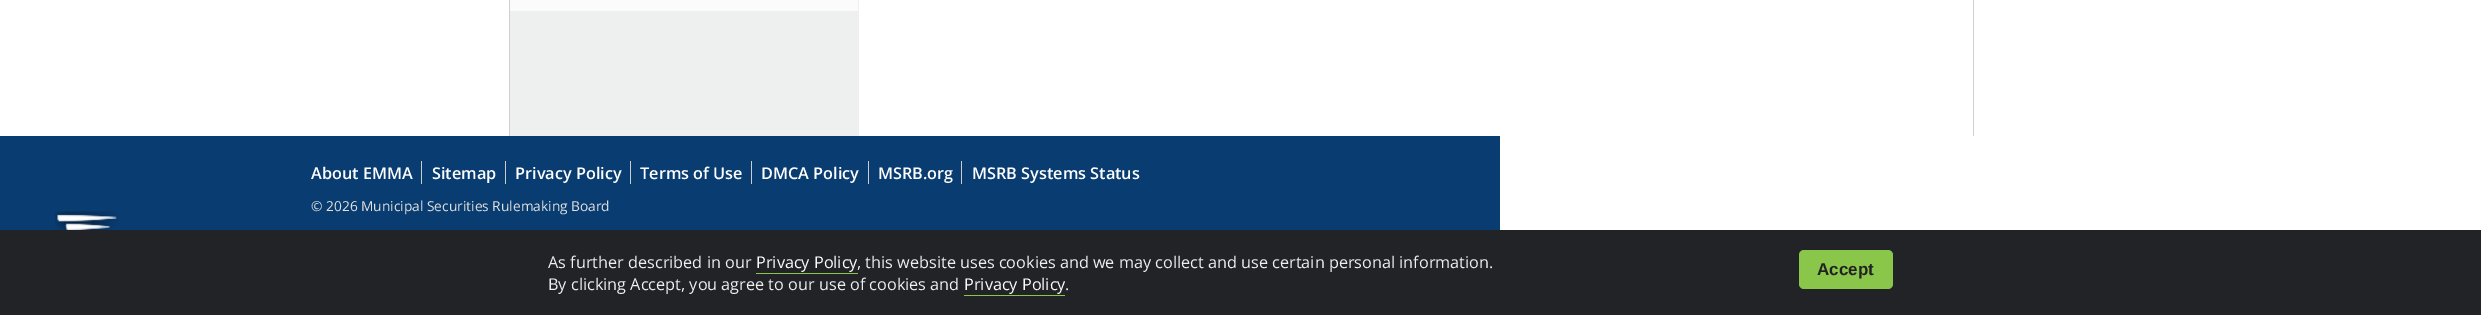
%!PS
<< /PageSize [2481 315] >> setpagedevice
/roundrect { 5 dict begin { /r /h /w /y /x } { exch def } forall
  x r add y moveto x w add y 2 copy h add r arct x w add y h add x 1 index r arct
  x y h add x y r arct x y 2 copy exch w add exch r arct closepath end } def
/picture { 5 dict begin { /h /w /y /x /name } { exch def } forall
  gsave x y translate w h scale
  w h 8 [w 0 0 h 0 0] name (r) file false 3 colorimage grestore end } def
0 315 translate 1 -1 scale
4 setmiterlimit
1 setgray
0 0 2481 315 rectfill
0.82 setgray
1973 0 1 136 rectfill
509 0 1 136 rectfill
0.933 0.941 0.937 setrgbcolor
510 0 349 136 rectfill
0.984 setgray
510 0 348 11 rectfill
0.035 0.235 0.443 setrgbcolor
0 136 1500 94 rectfill
0.8 setgray
421 161 1 23 rectfill
/OpenSans-SemiBold [16.25 0 0 -16.25 0 0] selectfont
1 setgray
311 179 moveto (About EMMA) show
0.8 setgray
505 161 1 23 rectfill
1 setgray
432 179 moveto (Sitemap) show
0.8 setgray
630 161 1 23 rectfill
1 setgray
515 179 moveto (Privacy Policy) show
0.8 setgray
751 161 1 23 rectfill
1 setgray
640 179 moveto (Terms of Use) show
0.8 setgray
868 161 1 23 rectfill
1 setgray
761 179 moveto (DMCA Policy) show
0.8 setgray
961 161 1 23 rectfill
1 setgray
878 179 moveto (MSRB.org) show
972 179 moveto (MSRB Systems Status) show
/OpenSans-Regular [13.75 0 0 -13.75 0 0] selectfont
0.882 setgray
311 211 moveto (© 2026 Municipal Securities Rulemaking Board) show
(img1.rgb) 55 211 64 19 picture
0.129 0.137 0.153 setrgbcolor
0 230 2481 85 rectfill
/OpenSans-Regular [16.25 0 0 -16.25 0 0] selectfont
0.925 0.941 0.945 setrgbcolor
548 268 moveto (As further described in our) show
1 setgray
756 268 moveto (Privacy Policy) show
0.541 0.776 0.286 setrgbcolor
756 273 102 1 rectfill
0.925 0.941 0.945 setrgbcolor
857 268 moveto (, this website uses cookies and we may collect and use certain personal information.) show
548 290 moveto (By clicking Accept, you agree to our use of cookies and) show
1 setgray
964 290 moveto (Privacy Policy) show
0.541 0.776 0.286 setrgbcolor
964 295 101 1 rectfill
0.925 0.941 0.945 setrgbcolor
1065 290 moveto (.) show
0.541 0.776 0.286 setrgbcolor
1799 250 94 39 5 roundrect fill
/LiberationSans-Bold [17 0 0 -17 0 0] selectfont
0.133 setgray
1817 275 moveto (Accept) show
showpage
